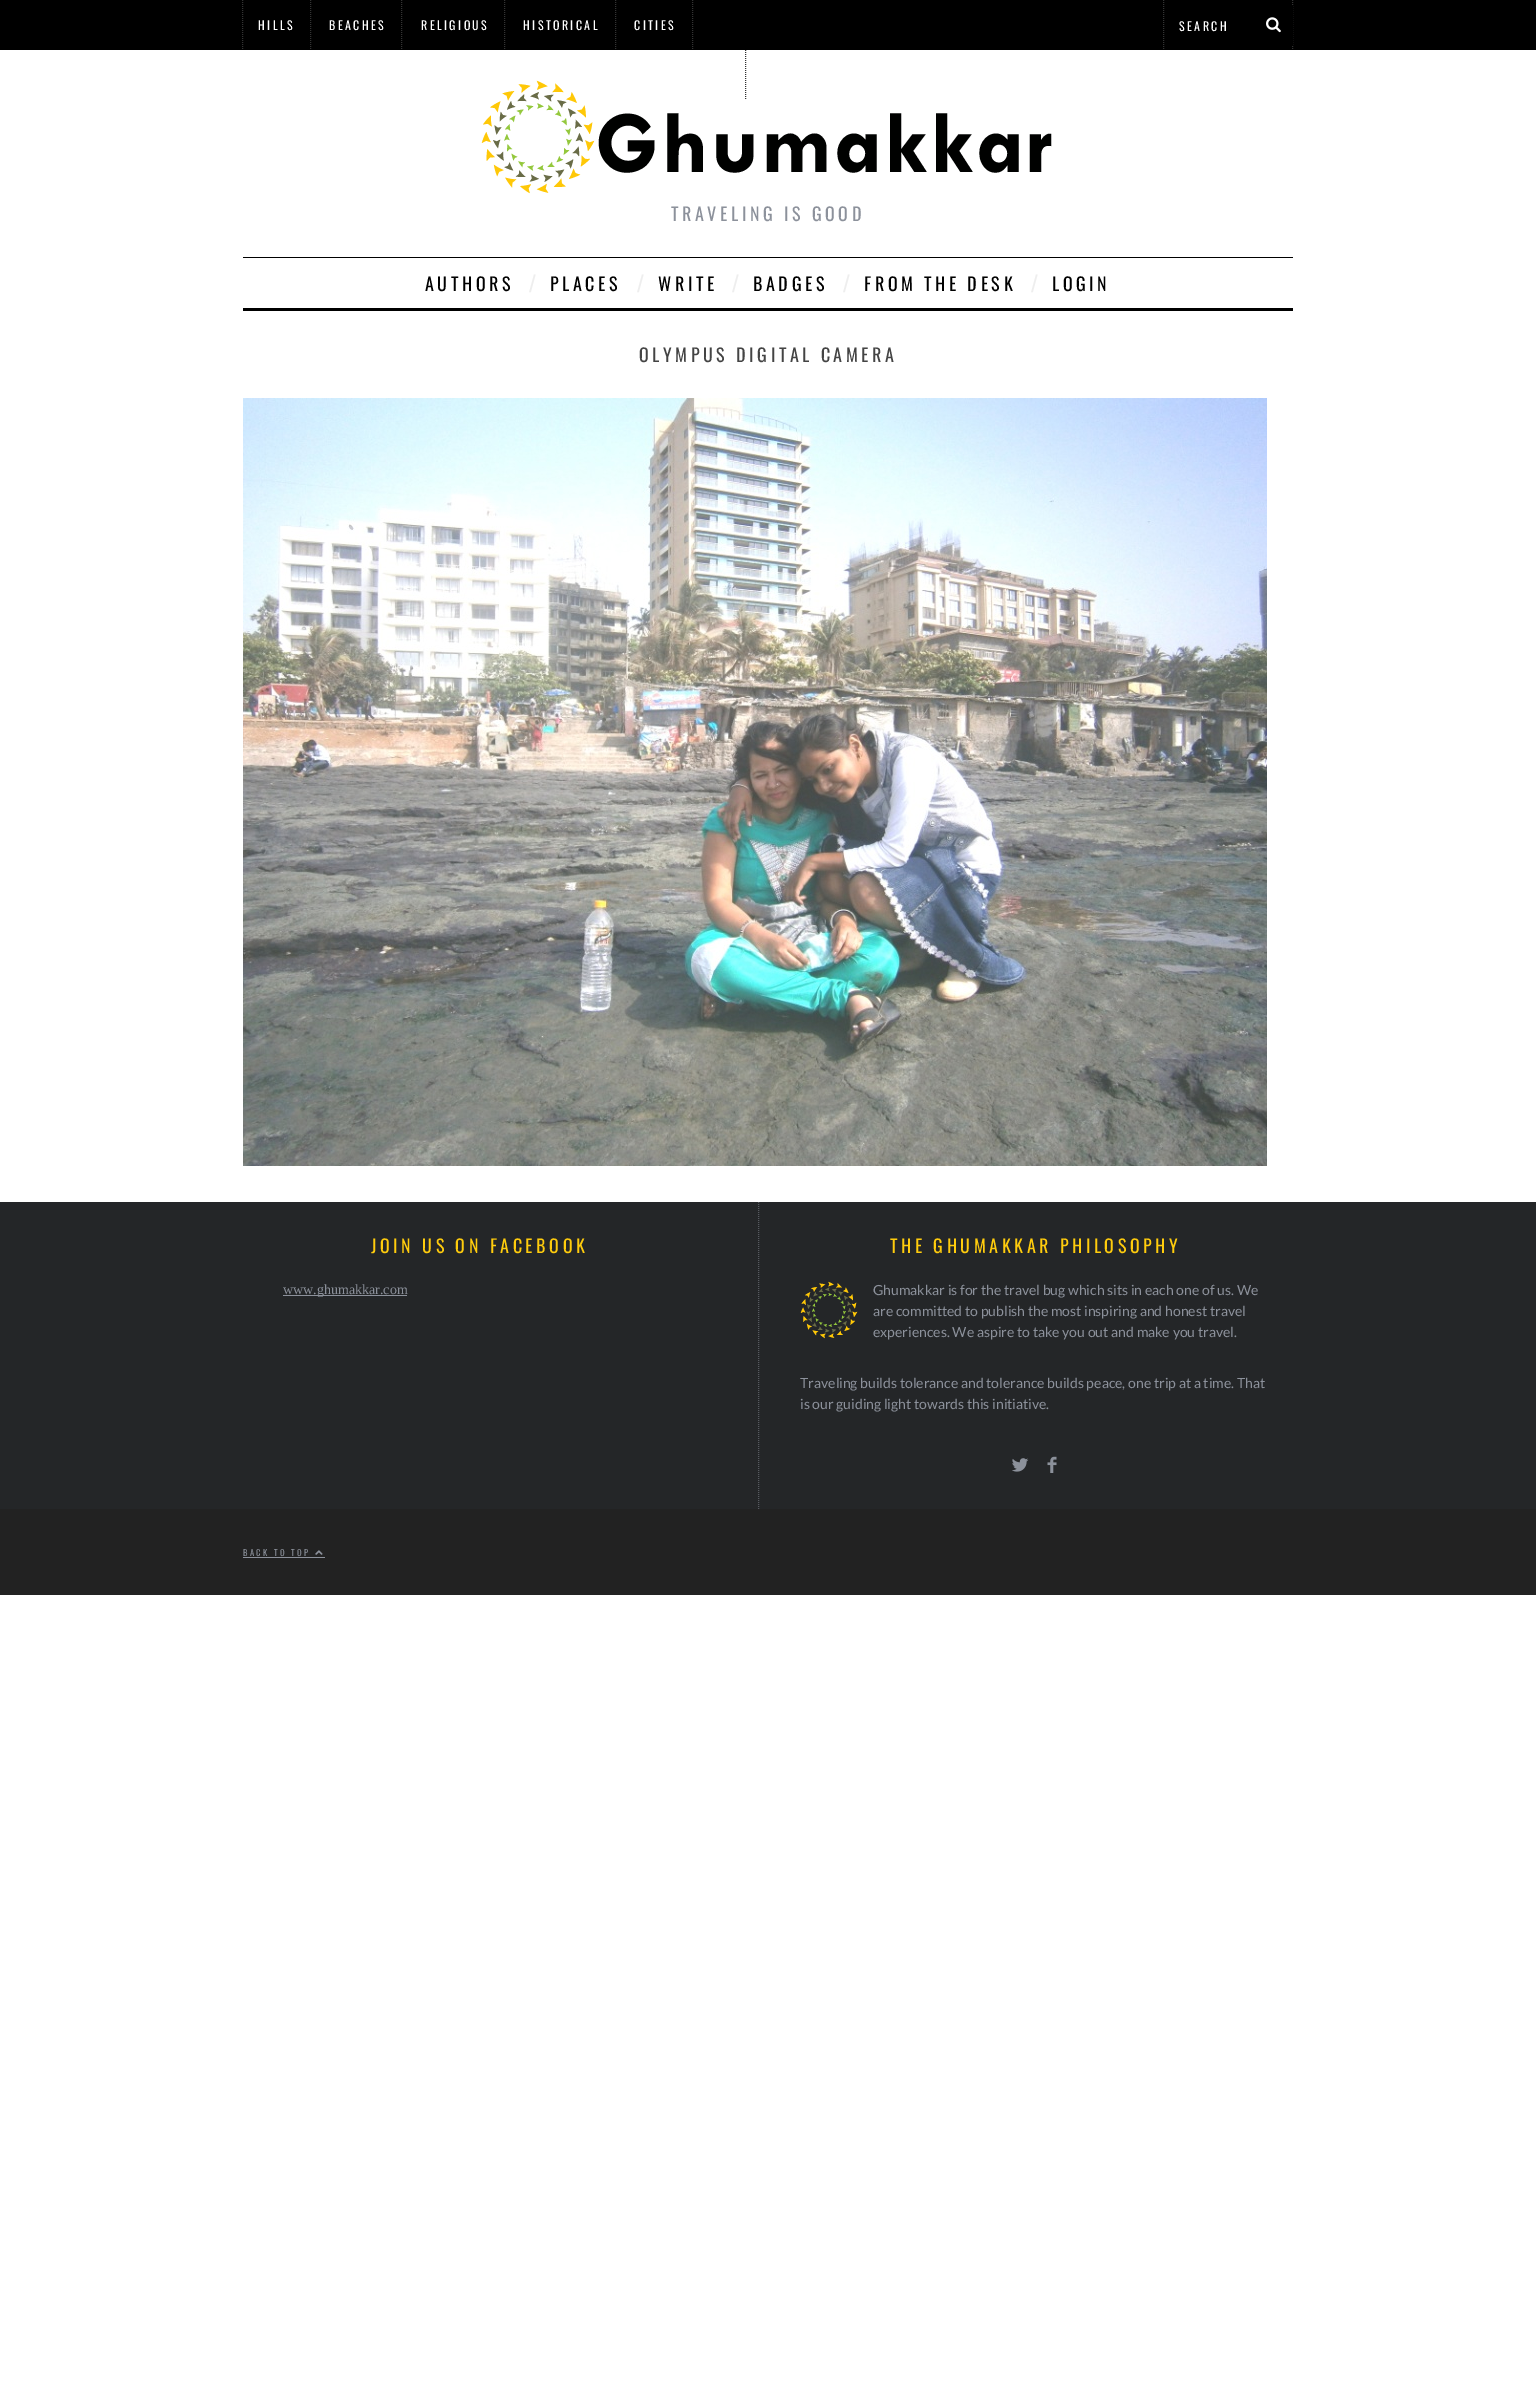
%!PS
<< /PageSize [1536 2405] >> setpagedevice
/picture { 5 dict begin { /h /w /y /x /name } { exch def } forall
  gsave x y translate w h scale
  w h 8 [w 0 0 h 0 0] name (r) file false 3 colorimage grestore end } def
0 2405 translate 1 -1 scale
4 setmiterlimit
1 setgray
0 0 1536 2405 rectfill
0 setgray
0 0 1536 50 rectfill
0.2 setgray
[1 1] 0 setdash
newpath 310.5 0 moveto 310.5 50 lineto stroke
newpath 242.5 0 moveto 242.5 50 lineto stroke
/Oswald-Regular [12 0 0 -12 0 0] selectfont
1 setgray
258 30 moveto 2.4 0 (HILLS) ashow
0.2 setgray
newpath 401.5 0 moveto 401.5 50 lineto stroke
1 setgray
329 30 moveto 2.4 0 (BEACHES) ashow
0.2 setgray
newpath 504.5 0 moveto 504.5 50 lineto stroke
1 setgray
421 30 moveto 2.4 0 (RELIGIOUS) ashow
0.2 setgray
newpath 615.5 0 moveto 615.5 50 lineto stroke
1 setgray
523 30 moveto 2.4 0 (HISTORICAL) ashow
0.2 setgray
newpath 692.5 0 moveto 692.5 50 lineto stroke
1 setgray
634 30 moveto 2.4 0 (CITIES) ashow
(img2.rgb) 481 80 571 114 picture
0.2 setgray
newpath 745.5 50 moveto 745.5 100 lineto stroke
newpath 1292.5 0 moveto 1292.5 50 lineto stroke
newpath 1163.5 0 moveto 1163.5 50 lineto stroke
1 setgray
1179 31 moveto 2.4 0 (SEARCH) ashow
0 setgray
1292 6 1 39 rectfill
(img1.rgb) 1266 17 15 16 picture
/Oswald-Regular [18 0 0 -18 0 0] selectfont
0.549 0.569 0.608 setrgbcolor
671 221 moveto 3.6 0 (TRAVELING IS GOOD) ashow
0 setgray
243 257 1050 1 rectfill
243 308 1050 3 rectfill
425 291 moveto 3.6 0 (AUTHORS) ashow
/LiberationSans-Regular [24 0 0 -24 0 0] selectfont
0.933 setgray
529 292 moveto 3.6 0 (/) ashow
/Oswald-Regular [18 0 0 -18 0 0] selectfont
0 setgray
550 291 moveto 3.6 0 (PLACES) ashow
/LiberationSans-Regular [24 0 0 -24 0 0] selectfont
0.933 setgray
637 292 moveto 3.6 0 (/) ashow
/Oswald-Regular [18 0 0 -18 0 0] selectfont
0 setgray
658 291 moveto 3.6 0 (WRITE) ashow
/LiberationSans-Regular [24 0 0 -24 0 0] selectfont
0.933 setgray
732 292 moveto 3.6 0 (/) ashow
/Oswald-Regular [18 0 0 -18 0 0] selectfont
0 setgray
753 291 moveto 3.6 0 (BADGES) ashow
/LiberationSans-Regular [24 0 0 -24 0 0] selectfont
0.933 setgray
843 292 moveto 3.6 0 (/) ashow
/Oswald-Regular [18 0 0 -18 0 0] selectfont
0 setgray
864 291 moveto 3.6 0 (FROM THE DESK) ashow
/LiberationSans-Regular [24 0 0 -24 0 0] selectfont
0.933 setgray
1031 292 moveto 3.6 0 (/) ashow
/Oswald-Regular [18 0 0 -18 0 0] selectfont
0 setgray
1052 291 moveto 3.6 0 (LOGIN) ashow
0.267 setgray
639 362 moveto 3.6 0 (OLYMPUS DIGITAL CAMERA) ashow
(img3.rgb) 243 398 1024 768 picture
0.141 0.149 0.157 setrgbcolor
0 1202 1536 307 rectfill
1 0.8 0.051 setrgbcolor
371 1253 moveto 3.6 0 (JOIN US ON FACEBOOK) ashow
0.549 0.569 0.608 setrgbcolor
283 1295 124 1 rectfill
/LiberationSerif-Regular [14 0 0 -14 0 0] selectfont
283 1294 moveto (www.ghumakkar.com) show
gsave
243 1202 1050 307 rectclip
0.345 0.357 0.38 setrgbcolor
newpath 758.5 1202 moveto 758.5 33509 lineto stroke
grestore
/Oswald-Regular [18 0 0 -18 0 0] selectfont
1 0.8 0.051 setrgbcolor
890 1253 moveto 3.6 0 (THE GHUMAKKAR PHILOSOPHY) ashow
(img4.rgb) 800 1281 58 58 picture
/Lato-Regular [14 0 0 -14 0 0] selectfont
0.549 0.569 0.608 setrgbcolor
873 1295 moveto (Ghumakkar is for the travel bug which sits in each one of us. We) show
873 1316 moveto (are committed to publish the most inspiring and honest travel) show
873 1337 moveto (experiences. We aspire to take you out and make you travel.) show
800 1388 moveto (Traveling builds tolerance and tolerance builds peace, one trip at a time. That) show
800 1409 moveto (is our guiding light towards this initiative.) show
(img5.rgb) 1012 1458 17 14 picture
(img6.rgb) 1047 1456 10 17 picture
0.133 setgray
0 1509 1536 86 rectfill
/Oswald-Regular [8.5 0 0 -8.5 0 0] selectfont
0.549 0.569 0.608 setrgbcolor
243 1556 moveto 2.4 0 (BACK TO TOP) ashow
243 1557 82 1 rectfill
(img7.rgb) 315 1550 8 5 picture
showpage
